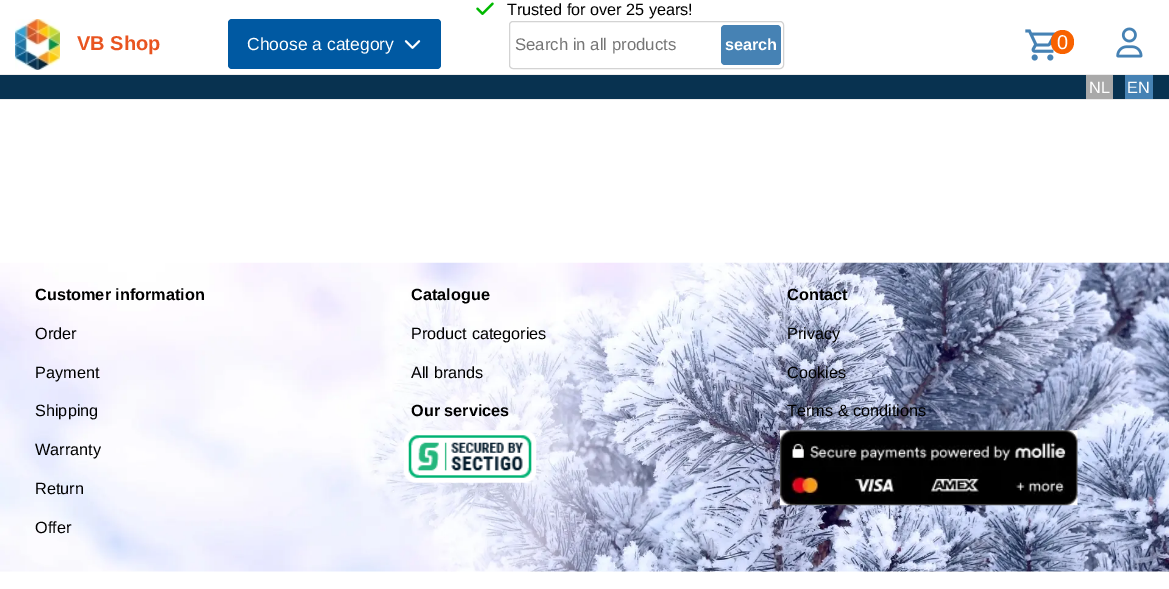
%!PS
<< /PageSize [1169 589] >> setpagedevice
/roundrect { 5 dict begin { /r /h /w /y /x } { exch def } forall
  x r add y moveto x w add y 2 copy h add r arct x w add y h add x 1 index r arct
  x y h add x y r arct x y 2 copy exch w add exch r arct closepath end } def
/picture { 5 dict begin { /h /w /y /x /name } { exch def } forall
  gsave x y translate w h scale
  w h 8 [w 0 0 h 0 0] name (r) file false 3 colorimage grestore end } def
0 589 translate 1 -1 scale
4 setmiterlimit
1 setgray
0 0 1169 589 rectfill
0.933 0.929 0.929 setrgbcolor
0 99 1169 1 rectfill
(img1.rgb) 476 2 18 13 picture
/LiberationSans-Regular [16.25 0 0 -16.25 0 0] selectfont
0 setgray
507 15 moveto (Trusted for over 25 years!) show
0.933 0.929 0.929 setrgbcolor
0 74 1169 1 rectfill
(img2.rgb) 15 19 45 51 picture
/LiberationSans-Bold [20 0 0 -20 0 0] selectfont
0.914 0.329 0.125 setrgbcolor
77 50 moveto (VB Shop) show
0 0.349 0.635 setrgbcolor
228 19 213 50 4 roundrect fill
/LiberationSans-Regular [17.5 0 0 -17.5 0 0] selectfont
1 setgray
247 50 moveto (Choose a category) show
(img3.rgb) 404 40 17 9 picture
0.827 setgray
509.5 21.5 274 47 3.5 roundrect stroke
/LiberationSans-Regular [16.75 0 0 -16.75 0 0] selectfont
0.459 setgray
515 50 moveto (Search in all products) show
0.275 0.51 0.706 setrgbcolor
721 25 60 40 4 roundrect fill
/LiberationSans-Bold [16.25 0 0 -16.25 0 0] selectfont
1 setgray
725 50 moveto (search) show
(img4.rgb) 1025 29 31 32 picture
0.973 0.384 0 setrgbcolor
1051 30 23 24 11.5 roundrect fill
/LiberationSans-Regular [20 0 0 -20 0 0] selectfont
1 setgray
1057 49 moveto (0) show
(img5.rgb) 1116 27 27 31 picture
0.031 0.196 0.314 setrgbcolor
0 75 1169 24 rectfill
0.663 setgray
1086 75 27 24 rectfill
/LiberationSans-Regular [16.25 0 0 -16.25 0 0] selectfont
1 setgray
1089 93 moveto (NL) show
0.275 0.51 0.706 setrgbcolor
1125 75 28 24 rectfill
1 setgray
1127 93 moveto (EN) show
(img6.rgb) 0 262 1169 310 picture
/LiberationSans-Bold [16.25 0 0 -16.25 0 0] selectfont
0 setgray
35 300 moveto (Customer information) show
/LiberationSans-Regular [16.25 0 0 -16.25 0 0] selectfont
35 339 moveto (Order) show
35 378 moveto (Payment) show
35 416 moveto (Shipping) show
35 455 moveto (Warranty) show
35 494 moveto (Return) show
35 533 moveto (Offer) show
/LiberationSans-Bold [16.25 0 0 -16.25 0 0] selectfont
411 300 moveto (Catalogue) show
/LiberationSans-Regular [16.25 0 0 -16.25 0 0] selectfont
411 339 moveto (Product categories) show
411 378 moveto (All brands) show
/LiberationSans-Bold [16.25 0 0 -16.25 0 0] selectfont
411 416 moveto (Our services) show
(img7.rgb) 403 430 134 53 picture
787 300 moveto (Contact) show
/LiberationSans-Regular [16.25 0 0 -16.25 0 0] selectfont
787 339 moveto (Privacy) show
787 378 moveto (Cookies) show
787 416 moveto (Terms & conditions) show
(img8.rgb) 780 430 298 76 picture
showpage
